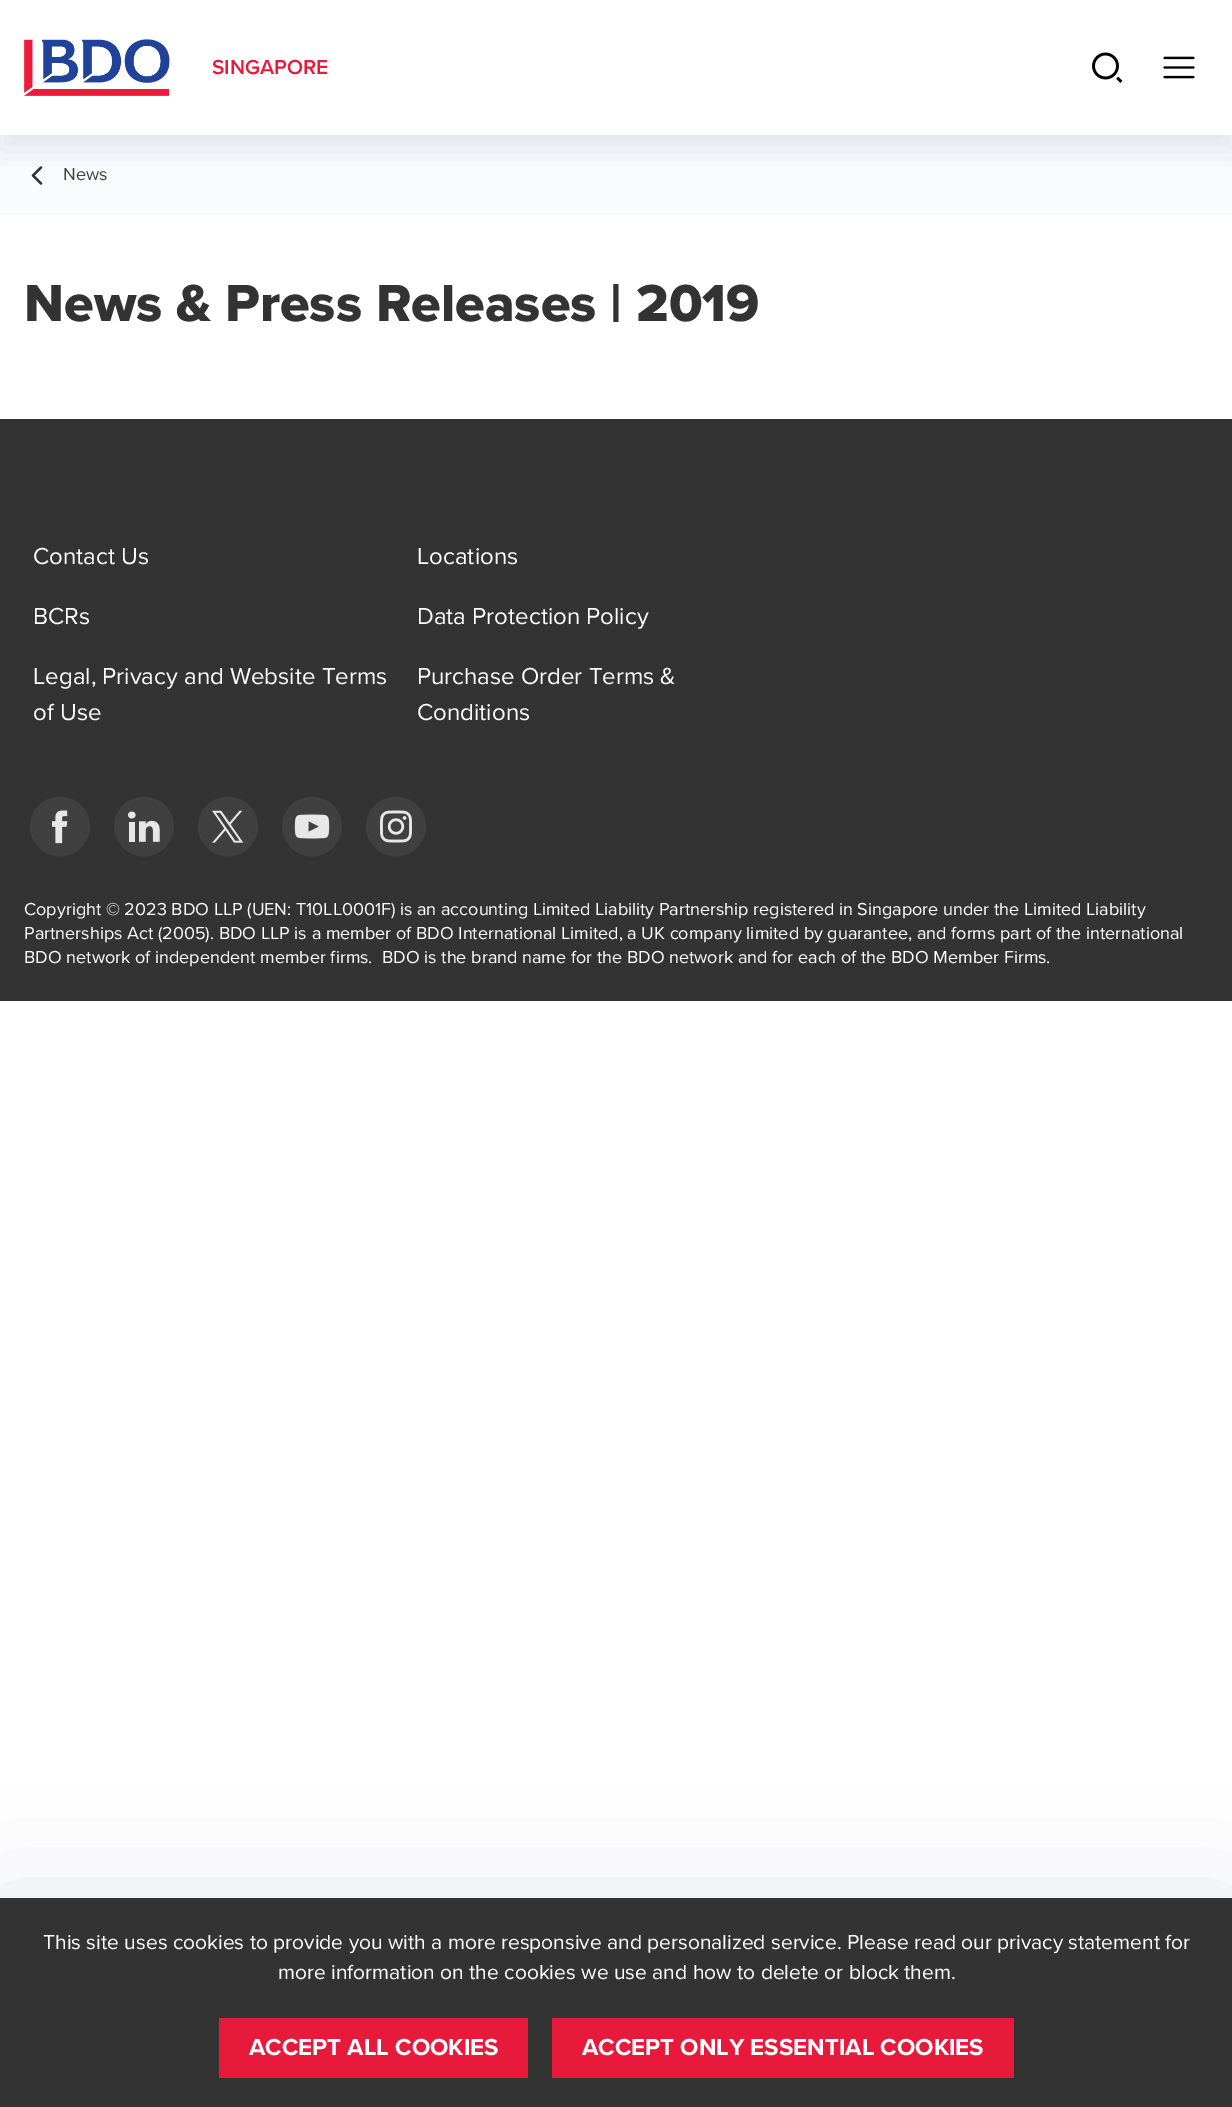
%!PS
<< /PageSize [1232 2107] /PageUsesTransparency true >> setpagedevice
/alpha { dup .setfillconstantalpha .setstrokeconstantalpha } def
/roundrect { 5 dict begin { /r /h /w /y /x } { exch def } forall
  x r add y moveto x w add y 2 copy h add r arct x w add y h add x 1 index r arct
  x y h add x y r arct x y 2 copy exch w add exch r arct closepath end } def
/shadow { 12 dict begin { /a /b /q /h /w /y /x } { exch def } forall gsave /was 0 def
  9 -2 -9 { dup b mul 4 div /e exch def 1 sub .425 mul 2.718 exch exp 1 add a .99 .min exch div /now exch def
    1 1 now sub 1 was sub div sub alpha /was now def
    w h .min e 2 mul add 0 gt { x e sub y e sub w e 2 mul add h e 2 mul add
      q e add b .6 mul add w h .min 2 div e add .min 0 .max roundrect fill } if } for grestore end } def
/picture { 5 dict begin { /h /w /y /x /name } { exch def } forall
  gsave x y translate w h scale
  w h 8 [w 0 0 h 0 0] name (r) file false 3 colorimage grestore end } def
0 .pushpdf14devicefilter
0 2107 translate 1 -1 scale
4 setmiterlimit
1 setgray
0 0 1232 2107 rectfill
0.98 0.984 0.992 setrgbcolor
0 135 1232 80 rectfill
0.2 setgray
2.2 setlinewidth
1 setlinecap
1 setlinejoin
newpath 41 183.5 moveto 33 175.5 lineto 41 167.5 lineto stroke
gsave
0 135 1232 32 rectclip
0.357 0.431 0.498 setrgbcolor
0 15 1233 135 0 15 0.15 shadow
grestore
(img1.rgb) 24 39 146 57 picture
/ProximaNova-SemiBold [21 0 0 -21 0 0] selectfont
0.91 0.102 0.231 setrgbcolor
212 74 moveto (SINGAPORE) show
(img2.rgb) 1092 52 31 31 picture
(img3.rgb) 1163 56 32 23 picture
/ProximaNova-Regular [18 0 0 -18 0 0] selectfont
0.251 setgray
63 180 moveto (News) show
/ProximaNova-ExtraBold [54 0 0 -54 0 0] selectfont
0.2 setgray
24 321 moveto (News & Press Releases | 2019) show
0 419 1232 582 rectfill
/ProximaNova-Regular [24 0 0 -24 0 0] selectfont
1 setgray
33 564 moveto (Contact Us) show
417 564 moveto (Locations) show
33 624 moveto (BCRs) show
417 624 moveto (Data Protection Policy) show
33 684 moveto (Legal, Privacy and Website Terms) show
33 720 moveto (of Use) show
417 684 moveto (Purchase Order Terms &) show
417 720 moveto (Conditions) show
(img4.rgb) 30 796 60 61 picture
(img5.rgb) 114 796 60 61 picture
(img6.rgb) 198 796 60 61 picture
(img7.rgb) 282 796 60 61 picture
(img8.rgb) 366 796 60 61 picture
/ProximaNova-Regular [18 0 0 -18 0 0] selectfont
24 915 moveto (Copyright © 2023 BDO LLP \(UEN: T10LL0001F\) is an accounting Limited Liability Partnership registered in Singapore under the Limited Liability) show
24 939 moveto (Partnerships Act \(2005\). BDO LLP is a member of BDO International Limited, a UK company limited by guarantee, and forms part of the international) show
24 963 moveto (BDO network of independent member firms.  BDO is the brand name for the BDO network and for each of the BDO Member Firms.) show
0.357 0.431 0.498 setrgbcolor
0 1922 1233 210 0 60 0.25 shadow
0.2 setgray
0 1898 1232 209 rectfill
/ProximaNova-Regular [21 0 0 -21 0 0] selectfont
1 setgray
43 1949 moveto (This site uses cookies to provide you with a more responsive and personalized service. Please read our privacy statement for) show
278 1979 moveto (more information on the cookies we use and how to delete or block them.) show
gsave newpath 219 2018 moveto 528 2018 lineto 528 2078 lineto 219 2078 lineto closepath clip newpath
<< /ShadingType 2 /ColorSpace /DeviceRGB /Coords [-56 1827 309 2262] /Extend [true true] /Function << /FunctionType 3 /Domain [0 1] /Functions [<< /FunctionType 2 /Domain [0 1] /C0 [0.357 0.431 0.498] /C1 [0.357 0.431 0.498] /N 1 >> << /FunctionType 2 /Domain [0 1] /C0 [0.91 0.102 0.231] /C1 [0.91 0.102 0.231] /N 1 >>] /Bounds [0.5] /Encode [0 1 0 1] >> >> shfill grestore
/ProximaNova-Bold [24 0 0 -24 0 0] selectfont
249 2055 moveto (ACCEPT ALL COOKIES) show
gsave newpath 552 2018 moveto 1014 2018 lineto 1014 2078 lineto 552 2078 lineto closepath clip newpath
<< /ShadingType 2 /ColorSpace /DeviceRGB /Coords [149 1729 678 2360] /Extend [true true] /Function << /FunctionType 3 /Domain [0 1] /Functions [<< /FunctionType 2 /Domain [0 1] /C0 [0.357 0.431 0.498] /C1 [0.357 0.431 0.498] /N 1 >> << /FunctionType 2 /Domain [0 1] /C0 [0.91 0.102 0.231] /C1 [0.91 0.102 0.231] /N 1 >>] /Bounds [0.5] /Encode [0 1 0 1] >> >> shfill grestore
582 2055 moveto (ACCEPT ONLY ESSENTIAL COOKIES) show
.poppdf14devicefilter showpage
